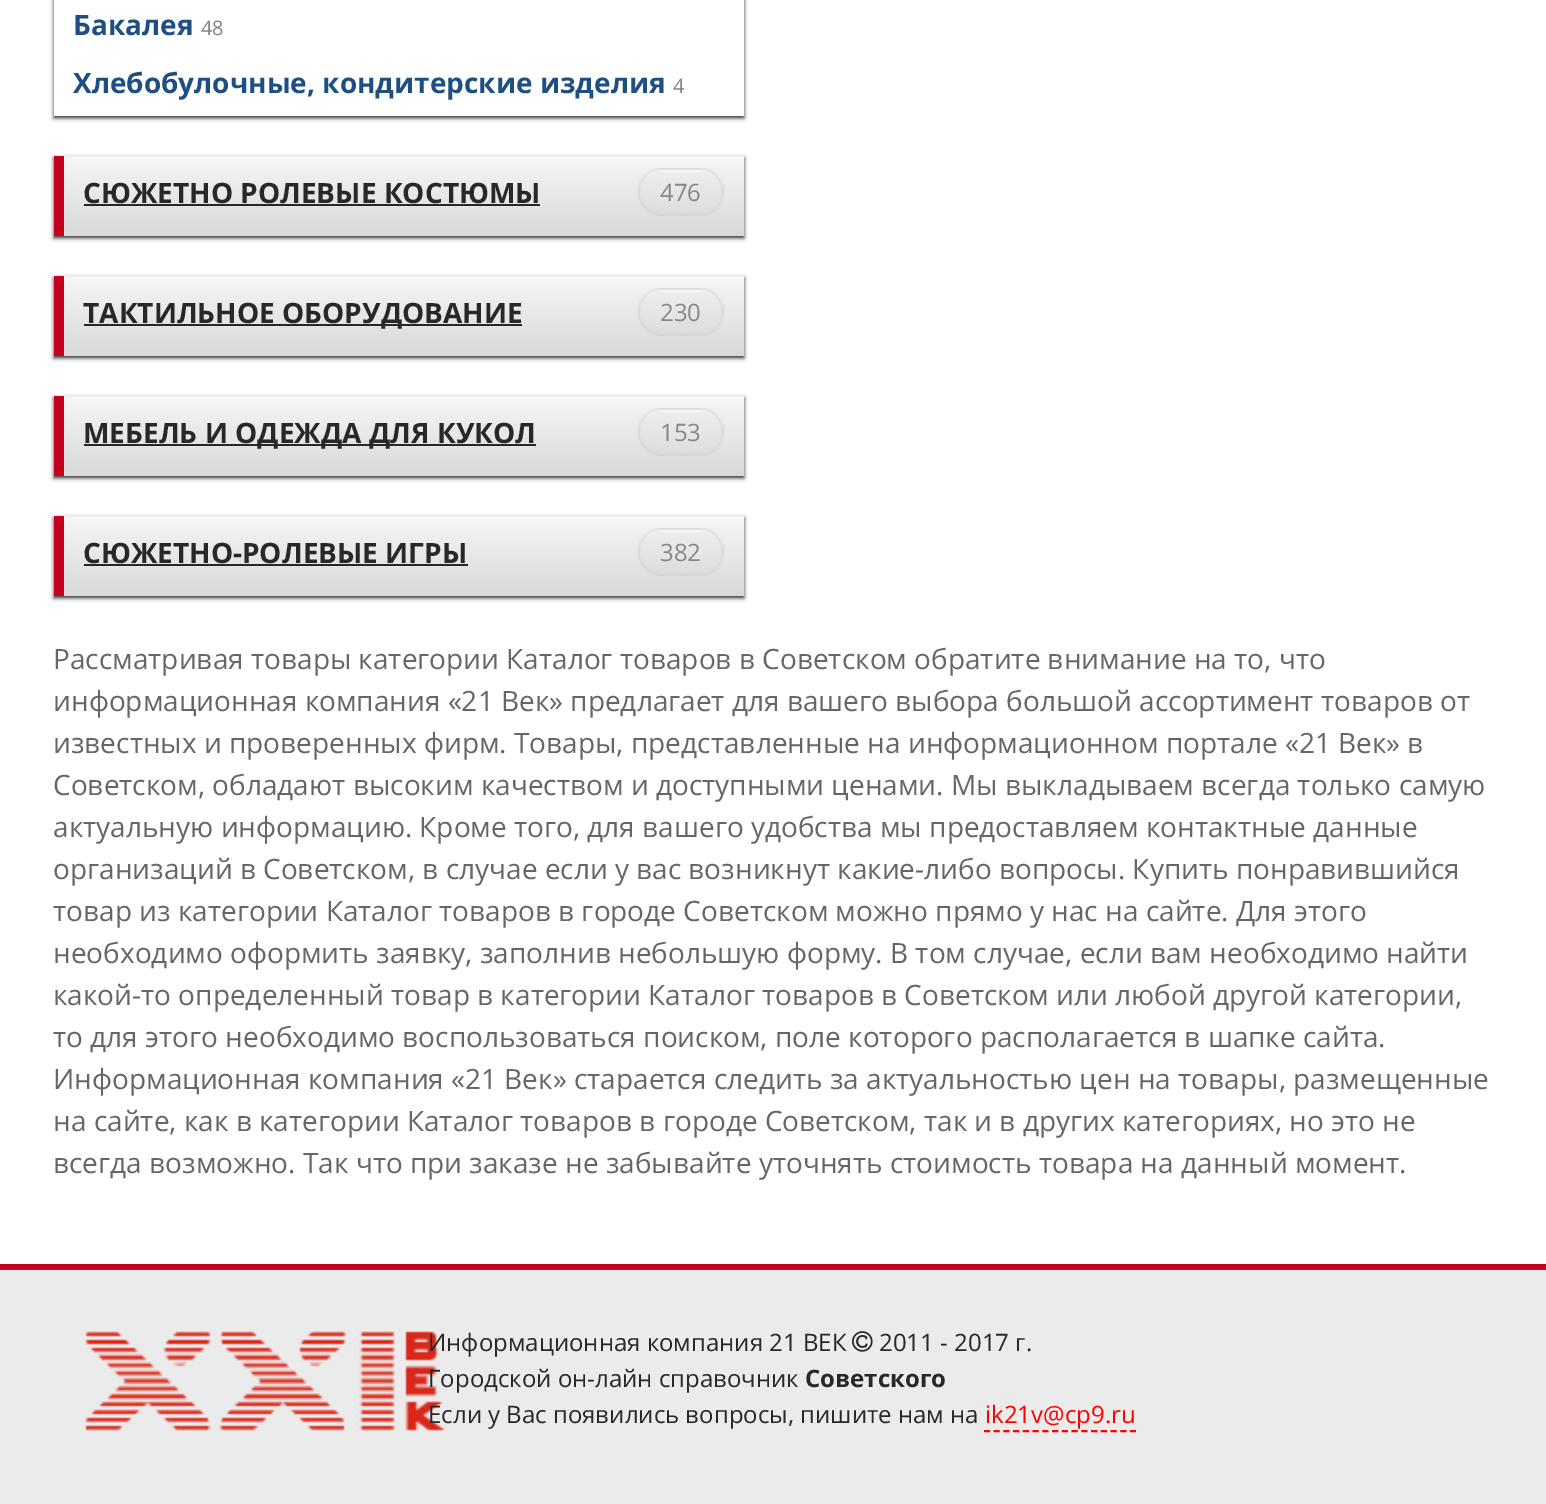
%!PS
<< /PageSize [1546 1504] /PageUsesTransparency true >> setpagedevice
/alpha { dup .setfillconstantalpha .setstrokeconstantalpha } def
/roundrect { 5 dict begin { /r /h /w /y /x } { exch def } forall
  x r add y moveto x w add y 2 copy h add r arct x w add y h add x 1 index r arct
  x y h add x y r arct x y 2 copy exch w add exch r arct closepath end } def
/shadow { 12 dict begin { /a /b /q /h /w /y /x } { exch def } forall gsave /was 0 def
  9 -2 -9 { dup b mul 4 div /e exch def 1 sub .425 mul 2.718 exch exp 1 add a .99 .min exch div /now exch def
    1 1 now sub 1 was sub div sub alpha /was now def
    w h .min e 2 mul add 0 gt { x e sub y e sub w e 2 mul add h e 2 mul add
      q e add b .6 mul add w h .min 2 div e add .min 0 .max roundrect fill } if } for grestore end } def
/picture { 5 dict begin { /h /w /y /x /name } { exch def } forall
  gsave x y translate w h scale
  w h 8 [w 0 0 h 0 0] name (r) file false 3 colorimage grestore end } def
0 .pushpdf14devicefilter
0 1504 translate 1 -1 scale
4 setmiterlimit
1 setgray
0 0 1546 1504 rectfill
gsave
newpath 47 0 moveto 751 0 lineto 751 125 lineto 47 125 lineto closepath 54 -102 moveto 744 -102 lineto 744 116 lineto 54 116 lineto closepath eoclip newpath
0.157 setgray
54 -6 690 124 0 2 1 shadow
grestore
/OpenSans-Bold [28 0 0 -28 0 0] selectfont
0.122 0.31 0.51 setrgbcolor
73 35 moveto (Бакалея) show
/OpenSans-Regular [20 0 0 -20 0 0] selectfont
0.51 0.506 0.506 setrgbcolor
201 35 moveto (48) show
/OpenSans-Bold [28 0 0 -28 0 0] selectfont
0.122 0.31 0.51 setrgbcolor
73 93 moveto (Хлебобулочные, кондитерские изделия) show
/OpenSans-Regular [20 0 0 -20 0 0] selectfont
0.51 0.506 0.506 setrgbcolor
673 93 moveto (4) show
0.157 setgray
54 158 690 80 0 2 1 shadow
gsave newpath 64 156 moveto 744 156 lineto 744 236 lineto 64 236 lineto closepath clip newpath
<< /ShadingType 2 /ColorSpace /DeviceRGB /Coords [404 156 404 236] /Extend [true true] /Function << /FunctionType 2 /Domain [0 1] /C0 [0.965 0.965 0.965] /C1 [0.851 0.851 0.851] /N 1 >> >> shfill grestore
0.765 0 0.122 setrgbcolor
54 156 10 80 rectfill
/OpenSans-Bold [28 0 0 -28 0 0] selectfont
0.157 setgray
83 203 moveto (СЮЖЕТНО РОЛЕВЫЕ КОСТЮМЫ) show
84 204 456 2 rectfill
(img1.rgb) 638 168 22 48 picture
(img2.rgb) 702 168 22 48 picture
(img3.rgb) 660 168 42 48 picture
/OpenSans-Regular [24 0 0 -24 0 0] selectfont
0.529 setgray
660 201 moveto (476) show
0.157 setgray
54 278 690 80 0 2 1 shadow
gsave newpath 64 276 moveto 744 276 lineto 744 356 lineto 64 356 lineto closepath clip newpath
<< /ShadingType 2 /ColorSpace /DeviceRGB /Coords [404 276 404 356] /Extend [true true] /Function << /FunctionType 2 /Domain [0 1] /C0 [0.965 0.965 0.965] /C1 [0.851 0.851 0.851] /N 1 >> >> shfill grestore
0.765 0 0.122 setrgbcolor
54 276 10 80 rectfill
0.157 setgray
84 324 438 2 rectfill
/OpenSans-Bold [28 0 0 -28 0 0] selectfont
83 323 moveto (ТАКТИЛЬНОЕ ОБОРУДОВАНИЕ) show
(img1.rgb) 638 288 22 48 picture
(img2.rgb) 702 288 22 48 picture
(img3.rgb) 660 288 42 48 picture
/OpenSans-Regular [24 0 0 -24 0 0] selectfont
0.529 setgray
660 321 moveto (230) show
0.157 setgray
54 398 690 80 0 2 1 shadow
gsave newpath 64 396 moveto 744 396 lineto 744 476 lineto 64 476 lineto closepath clip newpath
<< /ShadingType 2 /ColorSpace /DeviceRGB /Coords [404 396 404 476] /Extend [true true] /Function << /FunctionType 2 /Domain [0 1] /C0 [0.965 0.965 0.965] /C1 [0.851 0.851 0.851] /N 1 >> >> shfill grestore
0.765 0 0.122 setrgbcolor
54 396 10 80 rectfill
0.157 setgray
84 444 452 2 rectfill
/OpenSans-Bold [28 0 0 -28 0 0] selectfont
83 443 moveto (МЕБЕЛЬ И ОДЕЖДА ДЛЯ КУКОЛ) show
(img1.rgb) 638 408 22 48 picture
(img2.rgb) 702 408 22 48 picture
(img3.rgb) 660 408 42 48 picture
/OpenSans-Regular [24 0 0 -24 0 0] selectfont
0.529 setgray
660 441 moveto (153) show
0.157 setgray
54 518 690 80 0 2 1 shadow
gsave newpath 64 516 moveto 744 516 lineto 744 596 lineto 64 596 lineto closepath clip newpath
<< /ShadingType 2 /ColorSpace /DeviceRGB /Coords [404 516 404 596] /Extend [true true] /Function << /FunctionType 2 /Domain [0 1] /C0 [0.965 0.965 0.965] /C1 [0.851 0.851 0.851] /N 1 >> >> shfill grestore
0.765 0 0.122 setrgbcolor
54 516 10 80 rectfill
/OpenSans-Bold [28 0 0 -28 0 0] selectfont
0.157 setgray
83 563 moveto (СЮЖЕТНО-РОЛЕВЫЕ ИГРЫ) show
84 564 384 2 rectfill
(img1.rgb) 638 528 22 48 picture
(img2.rgb) 702 528 22 48 picture
(img3.rgb) 660 528 42 48 picture
/OpenSans-Regular [24 0 0 -24 0 0] selectfont
0.529 setgray
660 561 moveto (382) show
/OpenSans-Regular [28 0 0 -28 0 0] selectfont
0.4 setgray
53 669 moveto (Рассматривая товары категории Каталог товаров в Советском обратите внимание на то, что) show
53 711 moveto (информационная компания «21 Век» предлагает для вашего выбора большой ассортимент товаров от) show
53 753 moveto (известных и проверенных фирм. Товары, представленные на информационном портале «21 Век» в) show
53 795 moveto (Советском, обладают высоким качеством и доступными ценами. Мы выкладываем всегда только самую) show
53 837 moveto (актуальную информацию. Кроме того, для вашего удобства мы предоставляем контактные данные) show
53 879 moveto (организаций в Советском, в случае если у вас возникнут какие-либо вопросы. Купить понравившийся) show
53 921 moveto (товар из категории Каталог товаров в городе Советском можно прямо у нас на сайте. Для этого) show
53 963 moveto (необходимо оформить заявку, заполнив небольшую форму. В том случае, если вам необходимо найти) show
53 1005 moveto (какой-то определенный товар в категории Каталог товаров в Советском или любой другой категории,) show
53 1047 moveto (то для этого необходимо воспользоваться поиском, поле которого располагается в шапке сайта.) show
53 1089 moveto (Информационная компания «21 Век» старается следить за актуальностью цен на товары, размещенные) show
53 1131 moveto (на сайте, как в категории Каталог товаров в городе Советском, так и в других категориях, но это не) show
53 1173 moveto (всегда возможно. Так что при заказе не забывайте уточнять стоимость товара на данный момент.) show
0.922 setgray
0 1270 1546 234 rectfill
0.765 0 0.122 setrgbcolor
0 1264 1546 6 rectfill
(img4.rgb) 85 1331 360 100 picture
/OpenSans-Regular [24 0 0 -24 0 0] selectfont
0.157 setgray
428 1351 moveto (Информационная компания 21 ВЕК) show
(img5.rgb) 852 1331 21 21 picture
879 1351 moveto (2011 - 2017 г.) show
428 1387 moveto (Городской он-лайн справочник) show
/OpenSans-Bold [24 0 0 -24 0 0] selectfont
805 1387 moveto (Советского) show
/OpenSans-Regular [24 0 0 -24 0 0] selectfont
428 1423 moveto (Если у Вас появились вопросы, пишите нам на) show
1 0 0 setrgbcolor
985 1423 moveto (ik21v@cp9.ru) show
2 setlinewidth
[6 3.74] 0 setdash
newpath 984 1431 moveto 1136 1431 lineto stroke
.poppdf14devicefilter showpage
